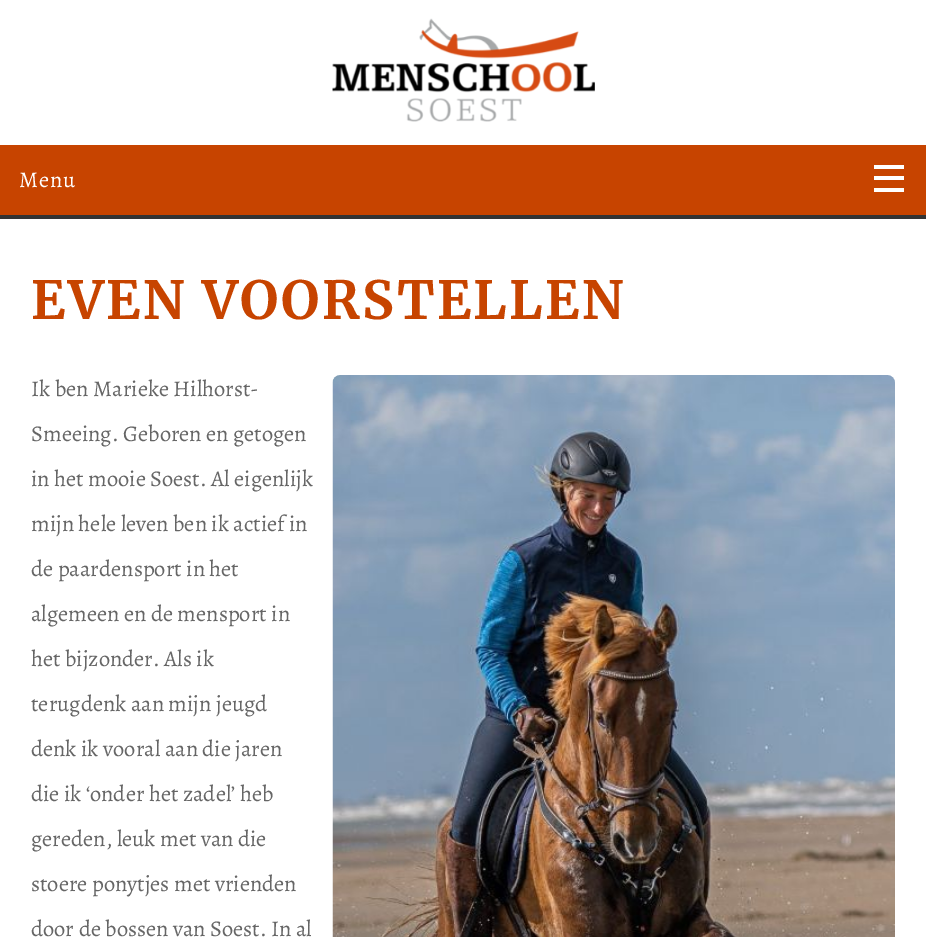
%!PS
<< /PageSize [926 937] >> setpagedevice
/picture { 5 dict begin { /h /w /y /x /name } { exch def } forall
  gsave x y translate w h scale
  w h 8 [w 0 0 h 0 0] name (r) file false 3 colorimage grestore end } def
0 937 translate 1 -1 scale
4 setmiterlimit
1 setgray
0 0 926 937 rectfill
0.2 setgray
0 215 926 4 rectfill
(img1.rgb) 332 18 263 104 picture
0.78 0.267 0 setrgbcolor
0 145 926 70 rectfill
/Alegreya-Regular [22.5 0 0 -22.5 0 0] selectfont
1 setgray
19 187 moveto 1 0 (Menu) ashow
874 165 30 4 rectfill
874 176 30 4 rectfill
874 188 30 4 rectfill
/Merriweather-Bold [52.5 0 0 -52.5 0 0] selectfont
0.78 0.267 0 setrgbcolor
31 319 moveto 2.5 0 (EVEN VOORSTELLEN) ashow
/Alegreya-Regular [22.5 0 0 -22.5 0 0] selectfont
0.4 setgray
31 396 moveto (Ik ben Marieke Hilhorst-) show
31 441 moveto (Smeeing. Geboren en getogen) show
31 486 moveto (in het mooie Soest. Al eigenlijk) show
31 531 moveto (mijn hele leven ben ik actief in) show
31 576 moveto (de paardensport in het) show
31 621 moveto (algemeen en de mensport in) show
31 666 moveto (het bijzonder. Als ik) show
31 711 moveto (terugdenk aan mijn jeugd) show
31 756 moveto (denk ik vooral aan die jaren) show
31 801 moveto (die ik ‘onder het zadel’ heb) show
31 846 moveto (gereden, leuk met van die) show
31 891 moveto (stoere ponytjes met vrienden) show
31 936 moveto (door de bossen van Soest. In al) show
(img2.rgb) 332 375 563 562 picture
showpage
